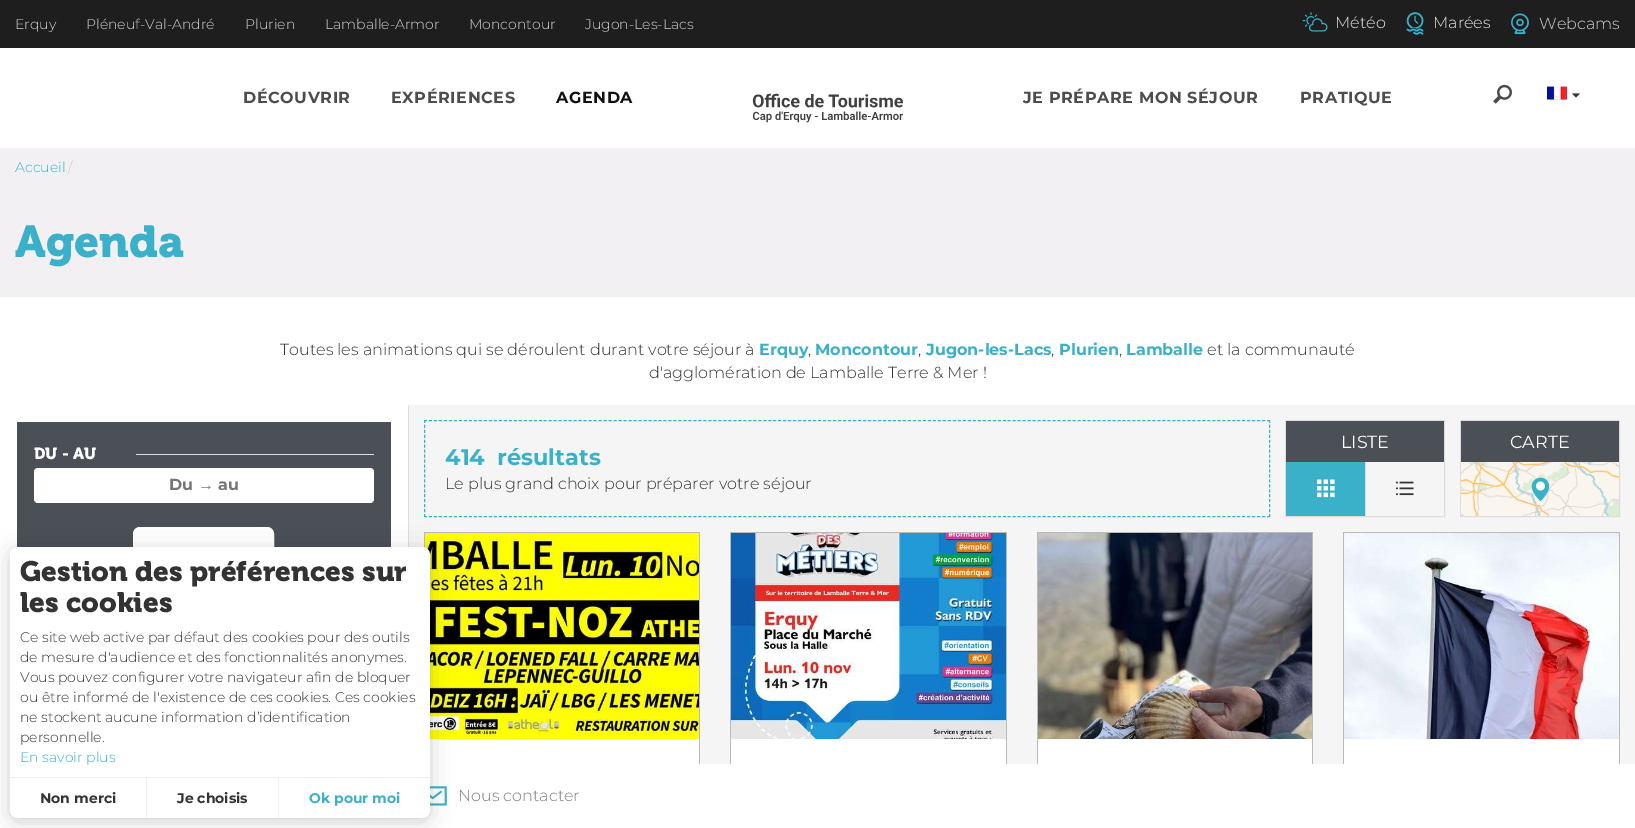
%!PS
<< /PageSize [1635 828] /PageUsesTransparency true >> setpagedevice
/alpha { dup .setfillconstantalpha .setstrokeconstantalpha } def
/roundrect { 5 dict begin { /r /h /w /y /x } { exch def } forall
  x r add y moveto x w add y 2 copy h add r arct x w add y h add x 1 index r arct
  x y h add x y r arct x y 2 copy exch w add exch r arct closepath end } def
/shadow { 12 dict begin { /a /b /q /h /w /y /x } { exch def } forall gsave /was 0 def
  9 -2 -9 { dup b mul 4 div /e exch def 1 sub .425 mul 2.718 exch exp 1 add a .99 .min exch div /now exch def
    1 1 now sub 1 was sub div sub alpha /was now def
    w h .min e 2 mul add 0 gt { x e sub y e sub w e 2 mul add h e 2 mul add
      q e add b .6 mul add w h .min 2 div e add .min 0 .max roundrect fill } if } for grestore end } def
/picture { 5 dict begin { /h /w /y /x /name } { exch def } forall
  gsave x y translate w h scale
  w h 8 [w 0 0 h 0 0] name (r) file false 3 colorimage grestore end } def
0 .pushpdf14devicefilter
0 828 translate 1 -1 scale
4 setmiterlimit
1 setgray
0 0 1635 828 rectfill
0.118 setgray
0 0 1635 48 rectfill
/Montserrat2-Thin [14 0 0 -14 0 0] selectfont
0.824 setgray
15 29 moveto (Erquy) show
86 29 moveto (Pléneuf-Val-André) show
245 29 moveto (Plurien) show
325 29 moveto (Lamballe-Armor) show
469 29 moveto (Moncontour) show
585 29 moveto (Jugon-Les-Lacs) show
(img1.rgb) 1302 12 26 20 picture
/Montserrat2-Thin [16 0 0 -16 0 0] selectfont
0.902 setgray
1335 28 moveto (Météo) show
(img2.rgb) 1406 12 18 23 picture
1433 28 moveto (Marées) show
(img3.rgb) 1511 13 18 21 picture
0.824 setgray
1539 29 moveto (Webcams) show
/Montserrat-Thin [16 0 0 -16 0 0] selectfont
0.302 setgray
243 103 moveto 0.6 0 (DÉCOUVRIR) ashow
391 103 moveto 0.6 0 (EXPÉRIENCES) ashow
0.067 setgray
556 103 moveto 0.6 0 (AGENDA) ashow
(img4.rgb) 752 93 151 30 picture
0.302 setgray
1023 103 moveto 0.6 0 (JE PRÉPARE MON SÉJOUR) ashow
1300 103 moveto 0.6 0 (PRATIQUE) ashow
(img5.rgb) 1493 84 19 20 picture
(img6.rgb) 1547 86 20 14 picture
0.2 setgray
newpath 1572 93.5 moveto 1580 93.5 lineto 1576 97.5 lineto closepath fill
0.949 0.941 0.949 setrgbcolor
0 148 1635 149 rectfill
/Montserrat2-Thin [14 0 0 -14 0 0] selectfont
0.227 0.694 0.788 setrgbcolor
15 172 moveto (Accueil) show
0.8 setgray
68 172 moveto (/) show
/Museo-SemiBold [44.5 0 0 -44.5 0 0] selectfont
0.227 0.694 0.788 setrgbcolor
15 257 moveto (Agenda) show
/Montserrat2-Thin [16 0 0 -16 0 0] selectfont
0.2 setgray
280 355 moveto (Toutes les animations qui se déroulent durant votre séjour à) show
/Montserrat-Thin [16 0 0 -16 0 0] selectfont
0.227 0.694 0.788 setrgbcolor
759 355 moveto (Erquy) show
/Montserrat2-Thin [16 0 0 -16 0 0] selectfont
0.2 setgray
808 355 moveto (,) show
/Montserrat-Thin [16 0 0 -16 0 0] selectfont
0.227 0.694 0.788 setrgbcolor
815 355 moveto (Moncontour) show
/Montserrat2-Thin [16 0 0 -16 0 0] selectfont
0.2 setgray
918 355 moveto (,) show
/Montserrat-Thin [16 0 0 -16 0 0] selectfont
0.227 0.694 0.788 setrgbcolor
926 355 moveto (Jugon-les-Lacs) show
/Montserrat2-Thin [16 0 0 -16 0 0] selectfont
0.2 setgray
1051 355 moveto (,) show
/Montserrat-Thin [16 0 0 -16 0 0] selectfont
0.227 0.694 0.788 setrgbcolor
1059 355 moveto (Plurien) show
/Montserrat2-Thin [16 0 0 -16 0 0] selectfont
0.2 setgray
1119 355 moveto (,) show
/Montserrat-Thin [16 0 0 -16 0 0] selectfont
0.227 0.694 0.788 setrgbcolor
1126 355 moveto (Lamballe) show
/Montserrat2-Thin [16 0 0 -16 0 0] selectfont
0.2 setgray
1207 355 moveto (et la communauté) show
649 378 moveto (d'agglomération de Lamballe Terre & Mer !) show
0.867 setgray
408 405 1 142 rectfill
0.294 0.314 0.337 setrgbcolor
17 422 374 126 rectfill
/Museo-SemiBold [16 0 0 -16 0 0] selectfont
1 setgray
34 459 moveto (DU - AU) show
0.867 setgray
136 454 238 1 rectfill
1 setgray
34 468 340 35 4 roundrect fill
/Montserrat-Thin [16 0 0 -16 0 0] selectfont
0.459 setgray
169 490 moveto (Du) show
/LiberationSans-Bold [16 0 0 -16 0 0] selectfont
198 490 moveto (→) show
/Montserrat-Thin [16 0 0 -16 0 0] selectfont
218 490 moveto (au) show
1 setgray
133.5 527.5 140 38 6.5 roundrect gsave fill grestore
stroke
0.961 setgray
409 405 1226 359 rectfill
0.867 setgray
1285.5 420.5 159 96 rectstroke
0.294 0.314 0.337 setrgbcolor
1286 421 158 41 rectfill
/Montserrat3-Thin [17.5 0 0 -17.5 0 0] selectfont
1 setgray
1341 448 moveto (LISTE) show
0.227 0.694 0.788 setrgbcolor
1286 462 79 54 rectfill
(img7.rgb) 1317 479 18 19 picture
0.867 setgray
1365 462 1 54 rectfill
(img8.rgb) 1396 481 18 15 picture
1460.5 420.5 159 96 rectstroke
0.294 0.314 0.337 setrgbcolor
1461 421 158 41 rectfill
1 setgray
1510 448 moveto (CARTE) show
(img9.rgb) 1461 462 158 54 picture
(img10.rgb) 1531 477 19 25 picture
0.227 0.694 0.788 setrgbcolor
[3 1.99] 0 setdash
newpath 424 420.5 moveto 1270 420.5 lineto stroke
[3 1.95] 0 setdash
newpath 1269.5 420 moveto 1269.5 517 lineto stroke
[3 1.99] 0 setdash
newpath 424 516.5 moveto 1270 516.5 lineto stroke
[3 1.95] 0 setdash
newpath 424.5 420 moveto 424.5 517 lineto stroke
/Montserrat-Thin [22.5 0 0 -22.5 0 0] selectfont
445 465 moveto (414) show
497 465 moveto (résultats) show
/Montserrat2-Thin [16 0 0 -16 0 0] selectfont
0.2 setgray
445 489 moveto (Le plus grand choix pour préparer votre séjour) show
0.729 setgray
424 532 276 1 rectfill
699 532 1 232 rectfill
424 532 1 16 rectfill
(img11.rgb) 425 533 274 206 picture
1 setgray
430 739 269 25 rectfill
0.729 setgray
730 532 277 1 rectfill
1006 532 1 232 rectfill
730 532 1 232 rectfill
(img12.rgb) 731 533 275 206 picture
1 setgray
731 739 275 25 rectfill
0.729 setgray
1037 532 276 1 rectfill
1312 532 1 232 rectfill
1037 532 1 232 rectfill
(img13.rgb) 1038 533 274 206 picture
1 setgray
1038 739 274 25 rectfill
0.729 setgray
1343 532 277 1 rectfill
1619 532 1 232 rectfill
1343 532 1 232 rectfill
(img14.rgb) 1344 533 275 206 picture
1 setgray
1344 739 275 25 rectfill
(img15.rgb) 430 786 17 20 picture
0.49 setgray
458 801 moveto (Nous contacter) show
0 setgray
10 549 420 271 8 3 0.05 shadow
10 551 420 271 8 12 0.15 shadow
1 setgray
10 547 420 271 8 roundrect fill
/Museo-SemiBold [28 0 0 -28 0 0] selectfont
0.2 setgray
20 581 moveto (Gestion des préférences sur) show
20 612 moveto (les cookies) show
/Montserrat2-Thin [14 0 0 -14 0 0] selectfont
20 642 moveto (Ce site web active par défaut des cookies pour des outils) show
20 662 moveto (de mesure d'audience et des fonctionnalités anonymes.) show
20 682 moveto (Vous pouvez configurer votre navigateur afin de bloquer) show
20 702 moveto (ou être informé de l'existence de ces cookies. Ces cookies) show
20 722 moveto (ne stockent aucune information d’identification) show
20 742 moveto (personnelle.) show
0.227 0.694 0.788 setrgbcolor
20 762 moveto (En savoir plus) show
0.937 setgray
10 777 420 1 rectfill
146 778 1 40 rectfill
/Montserrat-Thin [14 0 0 -14 0 0] selectfont
0.2 setgray
40 803 moveto (Non merci) show
0.937 setgray
278 778 1 40 rectfill
0.2 setgray
177 803 moveto (Je choisis) show
0.227 0.694 0.788 setrgbcolor
309 803 moveto (Ok pour moi) show
.poppdf14devicefilter showpage
